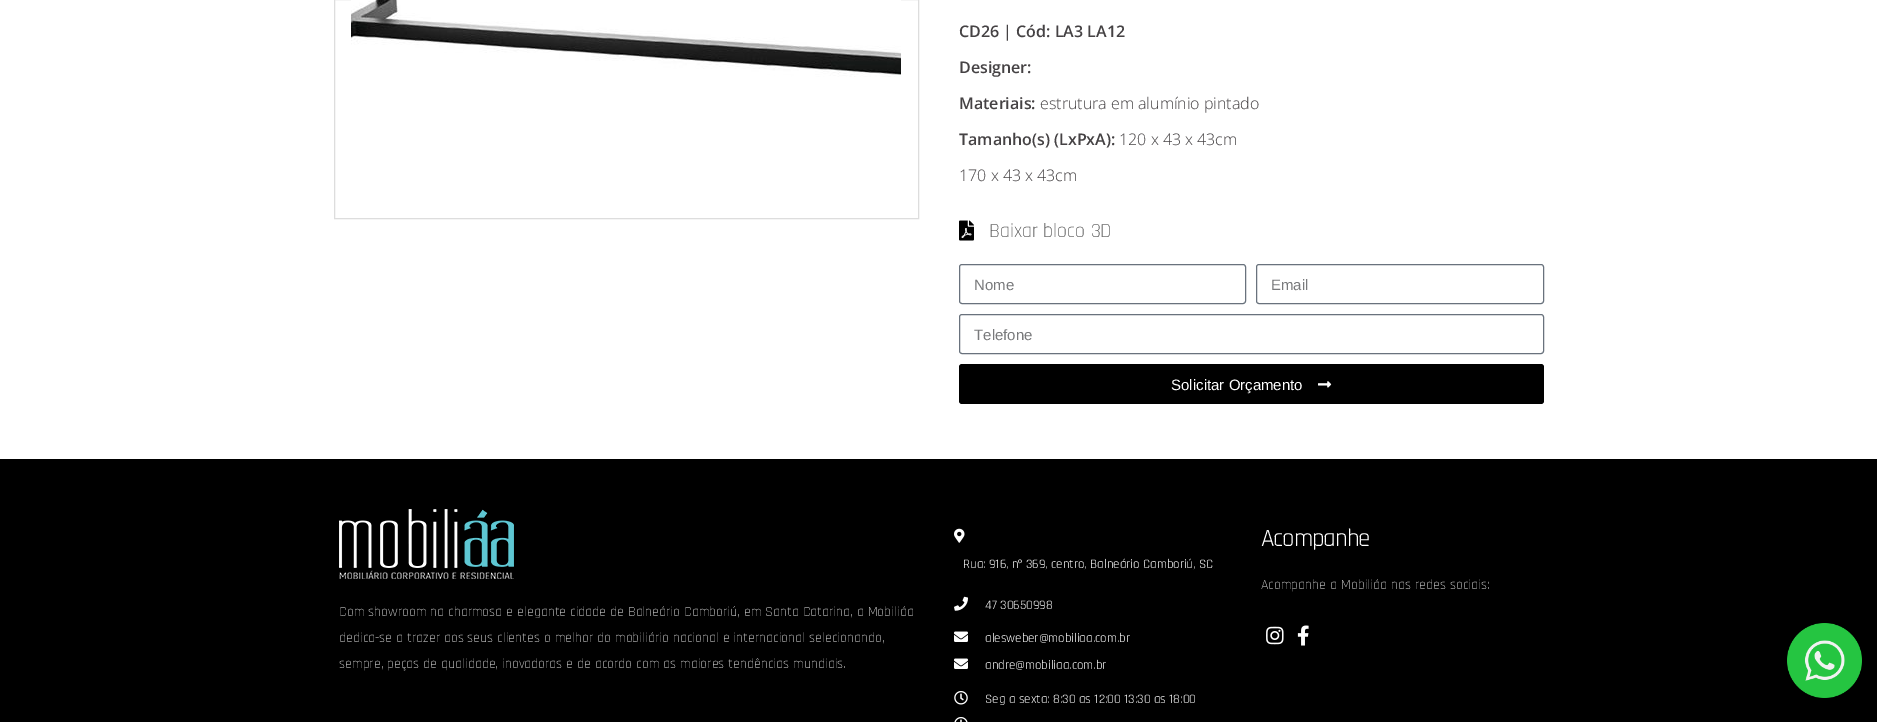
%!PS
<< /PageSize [1877 722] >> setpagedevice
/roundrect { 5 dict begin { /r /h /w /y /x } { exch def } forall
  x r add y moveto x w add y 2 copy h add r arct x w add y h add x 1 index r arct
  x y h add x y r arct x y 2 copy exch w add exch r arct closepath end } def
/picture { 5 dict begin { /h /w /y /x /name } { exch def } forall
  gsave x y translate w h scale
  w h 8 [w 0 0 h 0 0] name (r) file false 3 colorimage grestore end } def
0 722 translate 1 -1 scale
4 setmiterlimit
1 setgray
0 0 1877 722 rectfill
0.867 setgray
334.5 -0.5 584 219 rectstroke
(img1.rgb) 351 0 550 77 picture
/OpenSans-SemiBold [16 0 0 -16 0 0] selectfont
0.271 0.259 0.267 setrgbcolor
959 37 moveto (CD26 | Cód: LA3 LA12) show
959 73 moveto (Designer:) show
959 109 moveto (Materiais:) show
/OpenSans-Light [16 0 0 -16 0 0] selectfont
1040 109 moveto (estrutura em alumínio pintado) show
/OpenSans-SemiBold [16 0 0 -16 0 0] selectfont
959 145 moveto (Tamanho\(s\) \(LxPxA\):) show
/OpenSans-Light [16 0 0 -16 0 0] selectfont
1119 145 moveto (120 x 43 x 43cm) show
959 181 moveto (170 x 43 x 43cm) show
(img2.rgb) 959 220 15 21 picture
/Rajdhani-Light [20 0 0 -20 0 0] selectfont
0.22 setgray
989 237 moveto (Baixar bloco 3D) show
0.412 0.447 0.49 setrgbcolor
959.5 264.5 286 39 2.5 roundrect stroke
/LiberationSans-Regular [15 0 0 -15 0 0] selectfont
0.475 0.478 0.486 setrgbcolor
974 290 moveto (Nome) show
0.412 0.447 0.49 setrgbcolor
1256.5 264.5 287 39 2.5 roundrect stroke
0.475 0.478 0.486 setrgbcolor
1271 290 moveto (Email) show
0.412 0.447 0.49 setrgbcolor
959.5 314.5 584 39 2.5 roundrect stroke
0.475 0.478 0.486 setrgbcolor
974 340 moveto (Telefone) show
0 setgray
959 364 585 40 3 roundrect fill
1 setgray
1171 390 moveto (Solicitar Orçamento) show
(img3.rgb) 1318 381 14 7 picture
0 setgray
0 459 1877 263 rectfill
(img4.rgb) 339 509 175 70 picture
/Rajdhani-Light [14 0 0 -14 0 0] selectfont
0.898 setgray
339 616 moveto (Com showroom na charmosa e elegante cidade de Balneário Camboriú, em Santa Catarina, a Mobiliáa) show
339 642 moveto (dedica-se a trazer aos seus clientes o melhor do mobiliário nacional e internacional selecionando,) show
339 668 moveto (sempre, peças de qualidade, inovadoras e de acordo com as maiores tendências mundiais.) show
(img5.rgb) 954 528 11 15 picture
/Rajdhani-Regular [13 0 0 -13 0 0] selectfont
1 setgray
963 568 moveto (Rua: 916, n) show
/LiberationSerif-Regular [13 0 0 -13 0 0] selectfont
1018 568 moveto (º) show
/Rajdhani-Regular [13 0 0 -13 0 0] selectfont
1026 568 moveto (369, centro, Balneário Camboriú, SC) show
(img6.rgb) 954 596 14 15 picture
985 609 moveto (47 30650998) show
(img7.rgb) 954 631 14 11 picture
985 642 moveto (alesweber@mobiliaa.com.br) show
(img7.rgb) 954 658 14 11 picture
985 669 moveto (andre@mobiliaa.com.br) show
(img8.rgb) 954 691 14 14 picture
985 703 moveto (Seg a sexta: 8:30 as 12:00 13:30 as 18:00) show
(img9.rgb) 954 717 14 5 picture
/Rajdhani-Regular [25 0 0 -25 0 0] selectfont
1261 546 moveto -1 0 (Acompanhe) ashow
/Rajdhani-Light [14 0 0 -14 0 0] selectfont
0.898 setgray
1261 589 moveto (Acompanhe a Mobiliáa nas redes sociais:) show
(img10.rgb) 1266 626 18 19 picture
(img11.rgb) 1297 625 12 21 picture
(img12.rgb) 1787 623 75 75 picture
showpage
